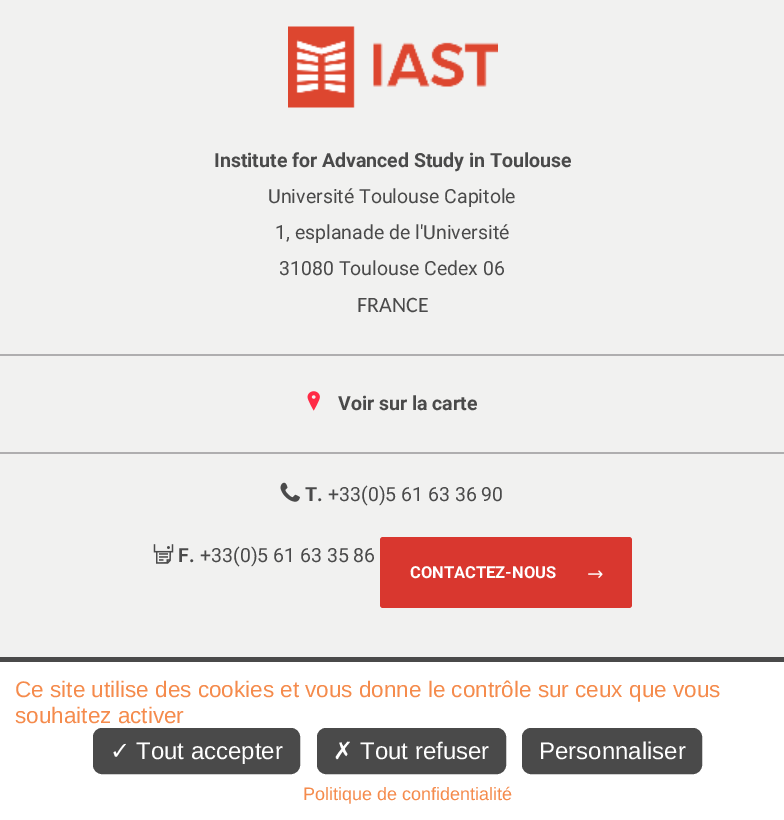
%!PS
<< /PageSize [784 820] >> setpagedevice
/roundrect { 5 dict begin { /r /h /w /y /x } { exch def } forall
  x r add y moveto x w add y 2 copy h add r arct x w add y h add x 1 index r arct
  x y h add x y r arct x y 2 copy exch w add exch r arct closepath end } def
/picture { 5 dict begin { /h /w /y /x /name } { exch def } forall
  gsave x y translate w h scale
  w h 8 [w 0 0 h 0 0] name (r) file false 3 colorimage grestore end } def
0 820 translate 1 -1 scale
4 setmiterlimit
0.945 0.945 0.941 setrgbcolor
0 0 784 820 rectfill
(img1.rgb) 288 26 210 82 picture
/Roboto-Bold [19.5 0 0 -19.5 0 0] selectfont
0.29 setgray
214 167 moveto (Institute for Advanced Study in Toulouse) show
/Roboto-Regular [19.5 0 0 -19.5 0 0] selectfont
268 203 moveto (Université Toulouse Capitole) show
275 239 moveto (1, esplanade de l'Université) show
279 275 moveto (31080 Toulouse Cedex 06) show
/Carlito-Regular [22 0 0 -22 0 0] selectfont
357 312 moveto (FRANCE) show
0.686 0.682 0.686 setrgbcolor
0 354 784 2 rectfill
0 452 784 2 rectfill
(img2.rgb) 307 391 13 20 picture
/Roboto-Bold [19.5 0 0 -19.5 0 0] selectfont
0.29 setgray
338 410 moveto (Voir sur la carte) show
(img3.rgb) 280 482 20 20 picture
305 501 moveto (T.) show
/Roboto-Regular [19.5 0 0 -19.5 0 0] selectfont
328 501 moveto (+33\(0\)5 61 63 36 90) show
(img4.rgb) 153 544 21 20 picture
/Roboto-Bold [19.5 0 0 -19.5 0 0] selectfont
178 562 moveto (F.) show
/Roboto-Regular [19.5 0 0 -19.5 0 0] selectfont
200 562 moveto (+33\(0\)5 61 63 35 86) show
0.851 0.216 0.184 setrgbcolor
380 537 252 71 3 roundrect fill
/Roboto-Bold [16.5 0 0 -16.5 0 0] selectfont
1 setgray
410 578 moveto (CONTACTEZ-NOUS) show
(img5.rgb) 588 570 15 8 picture
0 662 784 158 rectfill
0.29 setgray
0 657 784 5 rectfill
/LiberationSans-Regular [22.5 0 0 -22.5 0 0] selectfont
0.961 0.545 0.298 setrgbcolor
15 697 moveto (Ce site utilise des cookies et vous donne le contrôle sur ceux que vous) show
15 723 moveto (souhaitez activer) show
0.29 setgray
94 729 205 44 8 roundrect gsave fill grestore
2 setlinewidth
stroke
/DejaVuSans-Regular [24 0 0 -24 0 0] selectfont
1 setgray
110 759 moveto (✓) show
/LiberationSans-Regular [24 0 0 -24 0 0] selectfont
136 759 moveto (Tout accepter) show
0.29 setgray
318 729 187 44 8 roundrect gsave fill grestore
stroke
/DejaVuSans-Regular [24 0 0 -24 0 0] selectfont
1 setgray
333 759 moveto (✗) show
/LiberationSans-Regular [24 0 0 -24 0 0] selectfont
360 759 moveto (Tout refuser) show
0.29 setgray
523 729 178 44 8 roundrect gsave fill grestore
stroke
1 setgray
539 759 moveto (Personnaliser) show
/LiberationSans-Regular [18 0 0 -18 0 0] selectfont
0.961 0.545 0.298 setrgbcolor
303 800 moveto (Politique de confidentialité) show
showpage
